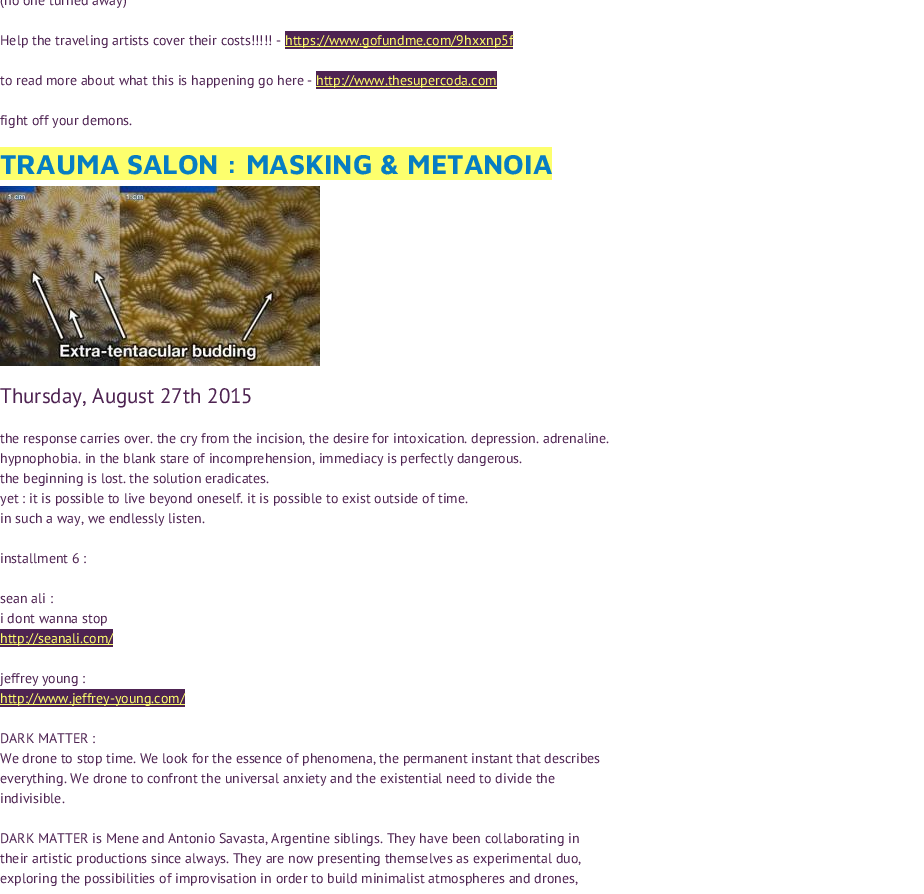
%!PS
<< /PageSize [924 894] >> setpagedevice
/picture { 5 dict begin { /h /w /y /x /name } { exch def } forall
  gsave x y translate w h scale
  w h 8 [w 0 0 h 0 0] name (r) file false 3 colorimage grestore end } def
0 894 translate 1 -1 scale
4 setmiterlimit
1 setgray
0 0 924 894 rectfill
/PTSans-Regular [14 0 0 -14 0 0] selectfont
0.306 0.137 0.322 setrgbcolor
0 5 moveto (\(no one turned away\)) show
0 45 moveto (Help the traveling artists cover their costs!!!!! -) show
285 31 228 18 rectfill
0.992 1 0.427 setrgbcolor
285 46 228 1 rectfill
285 45 moveto (https://www.gofundme.com/9hxxnp5f) show
0.306 0.137 0.322 setrgbcolor
0 85 moveto (to read more about what this is happening go here -) show
316 71 181 18 rectfill
0.992 1 0.427 setrgbcolor
316 86 181 1 rectfill
316 85 moveto (http://www.thesupercoda.com) show
0.306 0.137 0.322 setrgbcolor
0 125 moveto (fight off your demons.) show
0.992 1 0.427 setrgbcolor
0 147 552 33 rectfill
/MavenPro-Bold [28 0 0 -28 0 0] selectfont
0.027 0.49 0.765 setrgbcolor
0 174 moveto (TRAUMA SALON : MASKING & METANOIA) show
(img1.rgb) 0 186 320 180 picture
/PTSans-Regular [21 0 0 -21 0 0] selectfont
0.306 0.137 0.322 setrgbcolor
0 403 moveto (Thursday, August 27th 2015) show
/PTSans-Regular [14 0 0 -14 0 0] selectfont
0 443 moveto (the response carries over. the cry from the incision, the desire for intoxication. depression. adrenaline.) show
0 463 moveto (hypnophobia. in the blank stare of incomprehension, immediacy is perfectly dangerous.) show
0 483 moveto (the beginning is lost. the solution eradicates.) show
0 503 moveto (yet : it is possible to live beyond oneself. it is possible to exist outside of time.) show
0 523 moveto (in such a way, we endlessly listen.) show
0 563 moveto (installment 6 :) show
0 603 moveto (sean ali :) show
0 623 moveto (i dont wanna stop) show
0 629 113 18 rectfill
0.992 1 0.427 setrgbcolor
0 644 113 1 rectfill
0 643 moveto (http://seanali.com/) show
0.306 0.137 0.322 setrgbcolor
0 683 moveto (jeffrey young :) show
0 689 185 18 rectfill
0.992 1 0.427 setrgbcolor
0 704 185 1 rectfill
0 703 moveto (http://www.jeffrey-young.com/) show
0.306 0.137 0.322 setrgbcolor
0 743 moveto (DARK MATTER :) show
0 763 moveto (We drone to stop time. We look for the essence of phenomena, the permanent instant that describes) show
0 783 moveto (everything. We drone to confront the universal anxiety and the existential need to divide the) show
0 803 moveto (indivisible.) show
0 843 moveto (DARK MATTER is Mene and Antonio Savasta, Argentine siblings. They have been collaborating in) show
0 863 moveto (their artistic productions since always. They are now presenting themselves as experimental duo,) show
0 883 moveto (exploring the possibilities of improvisation in order to build minimalist atmospheres and drones,) show
showpage
